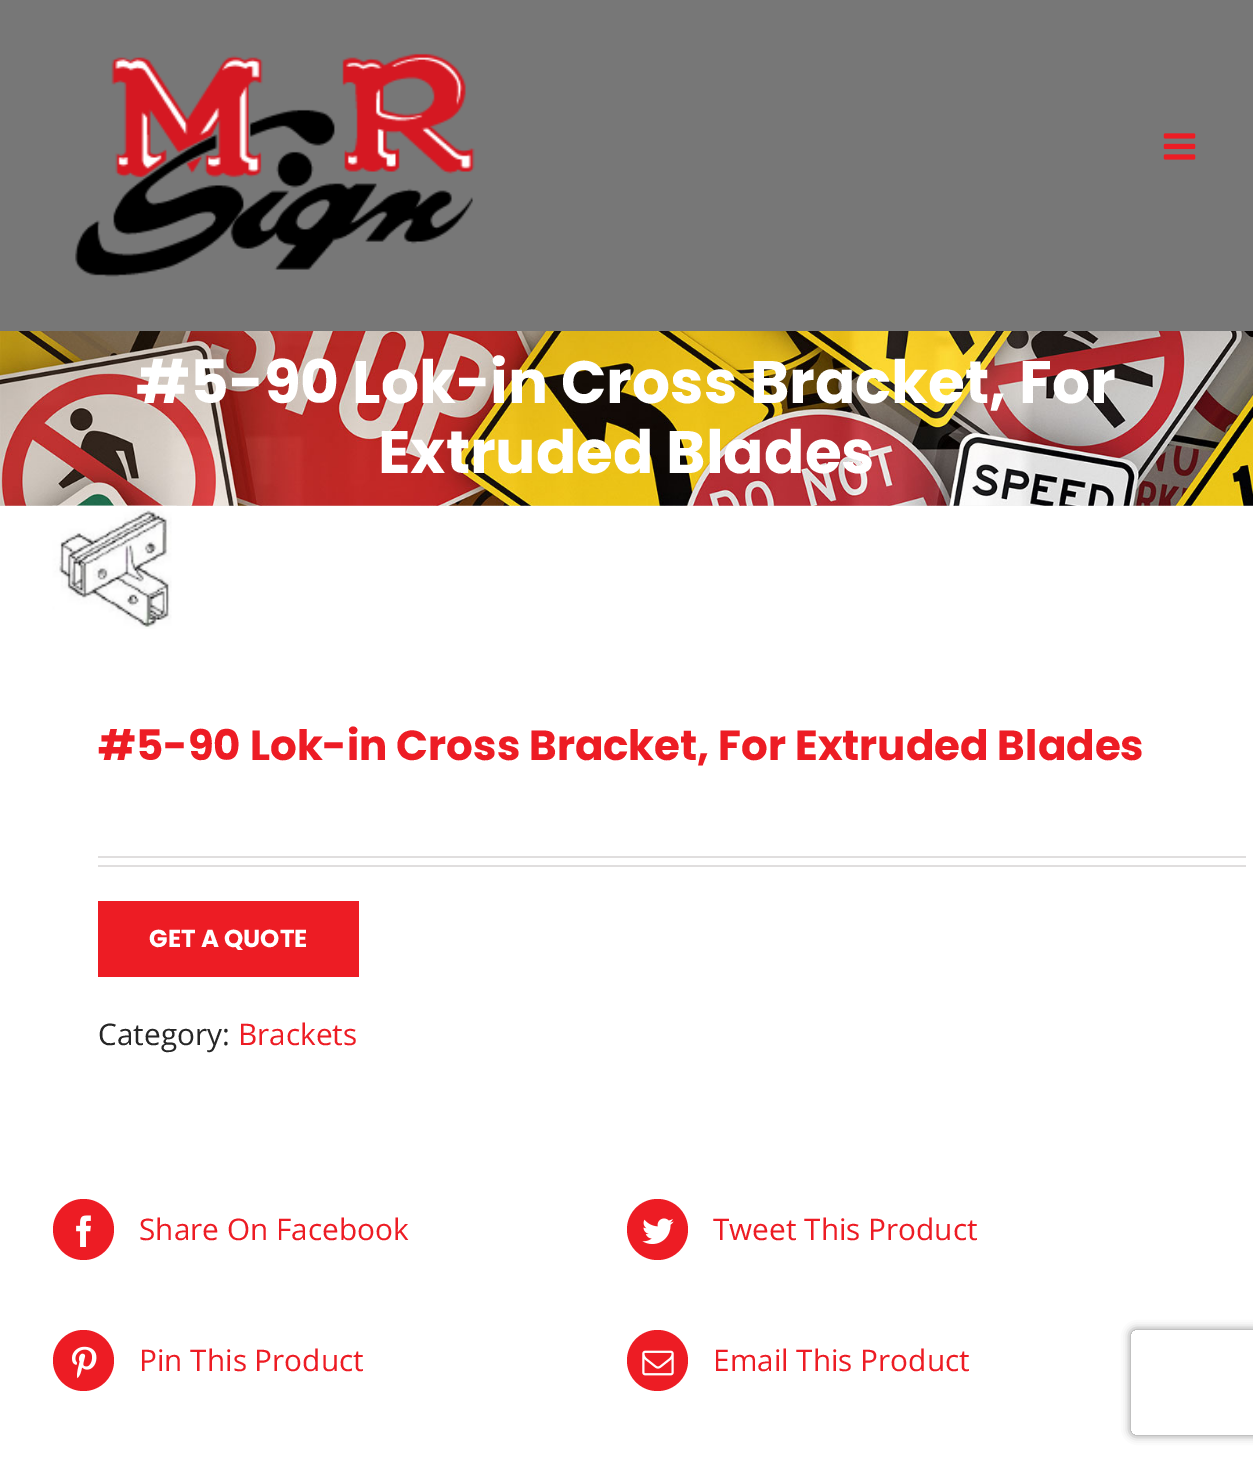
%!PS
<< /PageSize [1253 1459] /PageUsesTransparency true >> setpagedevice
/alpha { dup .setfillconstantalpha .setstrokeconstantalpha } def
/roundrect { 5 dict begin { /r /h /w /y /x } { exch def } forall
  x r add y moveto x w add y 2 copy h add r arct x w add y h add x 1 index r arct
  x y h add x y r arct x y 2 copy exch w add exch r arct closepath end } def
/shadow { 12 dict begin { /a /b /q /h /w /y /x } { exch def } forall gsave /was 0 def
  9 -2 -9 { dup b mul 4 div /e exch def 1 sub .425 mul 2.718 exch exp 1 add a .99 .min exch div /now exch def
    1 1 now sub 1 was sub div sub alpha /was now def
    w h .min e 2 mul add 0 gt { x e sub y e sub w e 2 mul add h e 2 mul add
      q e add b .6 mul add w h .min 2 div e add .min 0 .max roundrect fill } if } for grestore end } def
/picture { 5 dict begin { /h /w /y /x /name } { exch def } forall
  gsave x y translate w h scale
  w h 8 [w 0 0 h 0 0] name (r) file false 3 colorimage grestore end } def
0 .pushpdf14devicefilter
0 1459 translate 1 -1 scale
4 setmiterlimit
1 setgray
0 0 1253 1459 rectfill
0.467 setgray
0 0 1253 331 rectfill
(img1.rgb) 75 53 400 224 picture
(img2.rgb) 1163 133 33 27 picture
(img3.rgb) 0 331 1253 175 picture
/Poppins-Bold [59.8 0 0 -59.8 0 0] selectfont
1 setgray
136 403 moveto (#5-90 Lok-in Cross Bracket, For) show
378 473 moveto (Extruded Blades) show
(img4.rgb) 52 505 125 124 picture
/Poppins-Bold [42 0 0 -42 0 0] selectfont
0.929 0.11 0.141 setrgbcolor
98 760 moveto (#5-90 Lok-in Cross Bracket, For Extruded Blades) show
0.878 0.871 0.871 setrgbcolor
98 856 1148 2 rectfill
98 865 1148 2 rectfill
0.929 0.11 0.141 setrgbcolor
98 901 261 76 rectfill
/Poppins-Bold [24.5 0 0 -24.5 0 0] selectfont
1 setgray
149 947 moveto (GET A QUOTE) show
/OpenSans-Regular [29.75 0 0 -29.75 0 0] selectfont
0.149 setgray
98 1045 moveto (Category:) show
0.929 0.11 0.141 setrgbcolor
238 1045 moveto (Brackets) show
newpath 83.5 1229.5 30.5 0 360 arc closepath fill
(img5.rgb) 76 1215 15 32 picture
139 1240 moveto (Share On Facebook) show
newpath 657.5 1229.5 30.5 0 360 arc closepath fill
(img6.rgb) 642 1218 32 26 picture
713 1240 moveto (Tweet This Product) show
newpath 83.5 1360.5 30.5 0 360 arc closepath fill
(img7.rgb) 72 1346 25 33 picture
139 1371 moveto (Pin This Product) show
newpath 657.5 1360.5 30.5 0 360 arc closepath fill
(img8.rgb) 642 1350 32 26 picture
713 1371 moveto (Email This Product) show
gsave
newpath 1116 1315 moveto 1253 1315 lineto 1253 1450 lineto 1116 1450 lineto closepath 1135 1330 moveto 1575 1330 lineto 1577 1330 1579 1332 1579 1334 curveto 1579 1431 lineto 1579 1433 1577 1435 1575 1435 curveto 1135 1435 lineto 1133 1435 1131 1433 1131 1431 curveto 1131 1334 lineto 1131 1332 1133 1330 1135 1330 curveto closepath eoclip newpath
0.502 setgray
1131 1330 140 105 4 4.5 1 shadow
grestore
.poppdf14devicefilter showpage
